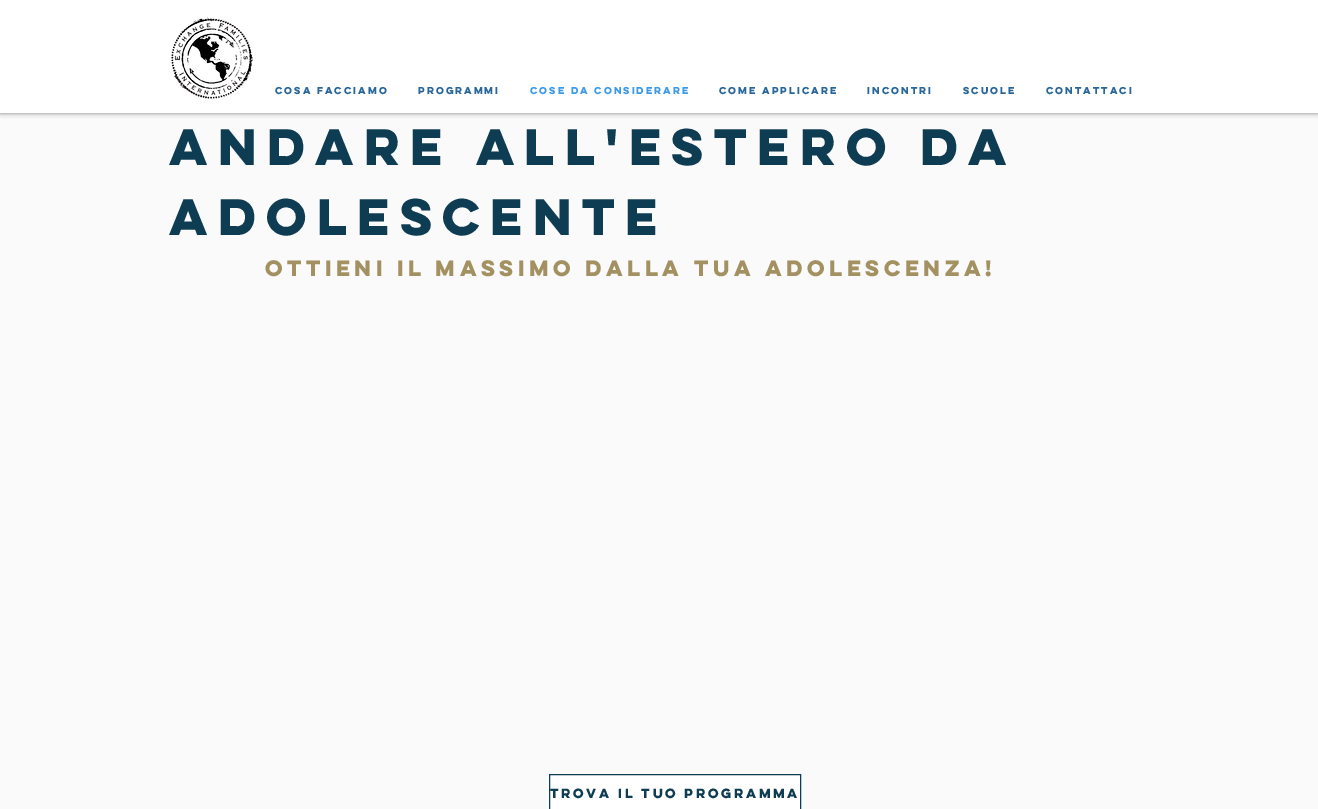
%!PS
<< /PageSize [1318 809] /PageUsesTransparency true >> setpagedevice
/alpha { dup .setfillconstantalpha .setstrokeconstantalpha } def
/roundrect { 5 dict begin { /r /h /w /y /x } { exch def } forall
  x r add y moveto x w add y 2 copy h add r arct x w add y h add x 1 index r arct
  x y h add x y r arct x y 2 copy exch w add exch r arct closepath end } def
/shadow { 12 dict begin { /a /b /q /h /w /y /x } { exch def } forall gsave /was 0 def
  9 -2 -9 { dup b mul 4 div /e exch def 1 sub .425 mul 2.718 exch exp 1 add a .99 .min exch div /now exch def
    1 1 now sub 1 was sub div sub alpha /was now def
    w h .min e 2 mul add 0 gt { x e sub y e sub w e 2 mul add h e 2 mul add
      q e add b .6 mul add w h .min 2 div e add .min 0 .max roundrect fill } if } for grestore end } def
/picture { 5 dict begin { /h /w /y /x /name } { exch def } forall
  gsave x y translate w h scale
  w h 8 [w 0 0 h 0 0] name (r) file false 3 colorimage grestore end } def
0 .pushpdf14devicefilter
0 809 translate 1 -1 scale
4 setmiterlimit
0.98 setgray
0 0 1318 809 rectfill
0 setgray
0 0 1318 113 0 2.5 0.5 shadow
1 setgray
0 0 1318 113 rectfill
(img1.rgb) 171 17 82 82 picture
/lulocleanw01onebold-Bold [9 0 0 -9 0 0] selectfont
0.161 0.404 0.608 setrgbcolor
275 94 moveto (COSA FACCIAMO) show
418 94 moveto (PROGRAMMI) show
0.239 0.608 0.914 setrgbcolor
530 94 moveto (COSE DA CONSIDERARE) show
0.161 0.404 0.608 setrgbcolor
719 94 moveto (COME APPLICARE) show
867 94 moveto (INCONTRI) show
963 94 moveto (SCUOLE) show
1046 94 moveto (CONTATTACI) show
/lulocleanw01onebold-Bold [46 0 0 -46 0 0] selectfont
0.055 0.235 0.325 setrgbcolor
169 165 moveto (Andare all'estero da) show
169 235 moveto (adolescente) show
/lulocleanw01onebold-Bold [20 0 0 -20 0 0] selectfont
0.639 0.569 0.38 setrgbcolor
265 276 moveto (Ottieni il massimo dalla tua adolescenza!) show
1 setgray
newpath 549.5 774.5 moveto 800.5 774.5 lineto 800.5 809.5 lineto 549.5 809.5 lineto closepath gsave fill grestore
0.055 0.235 0.325 setrgbcolor
stroke
/lulocleanw01onebold-Bold [12 0 0 -12 0 0] selectfont
550 798 moveto (Trova il tuo programma) show
.poppdf14devicefilter showpage
